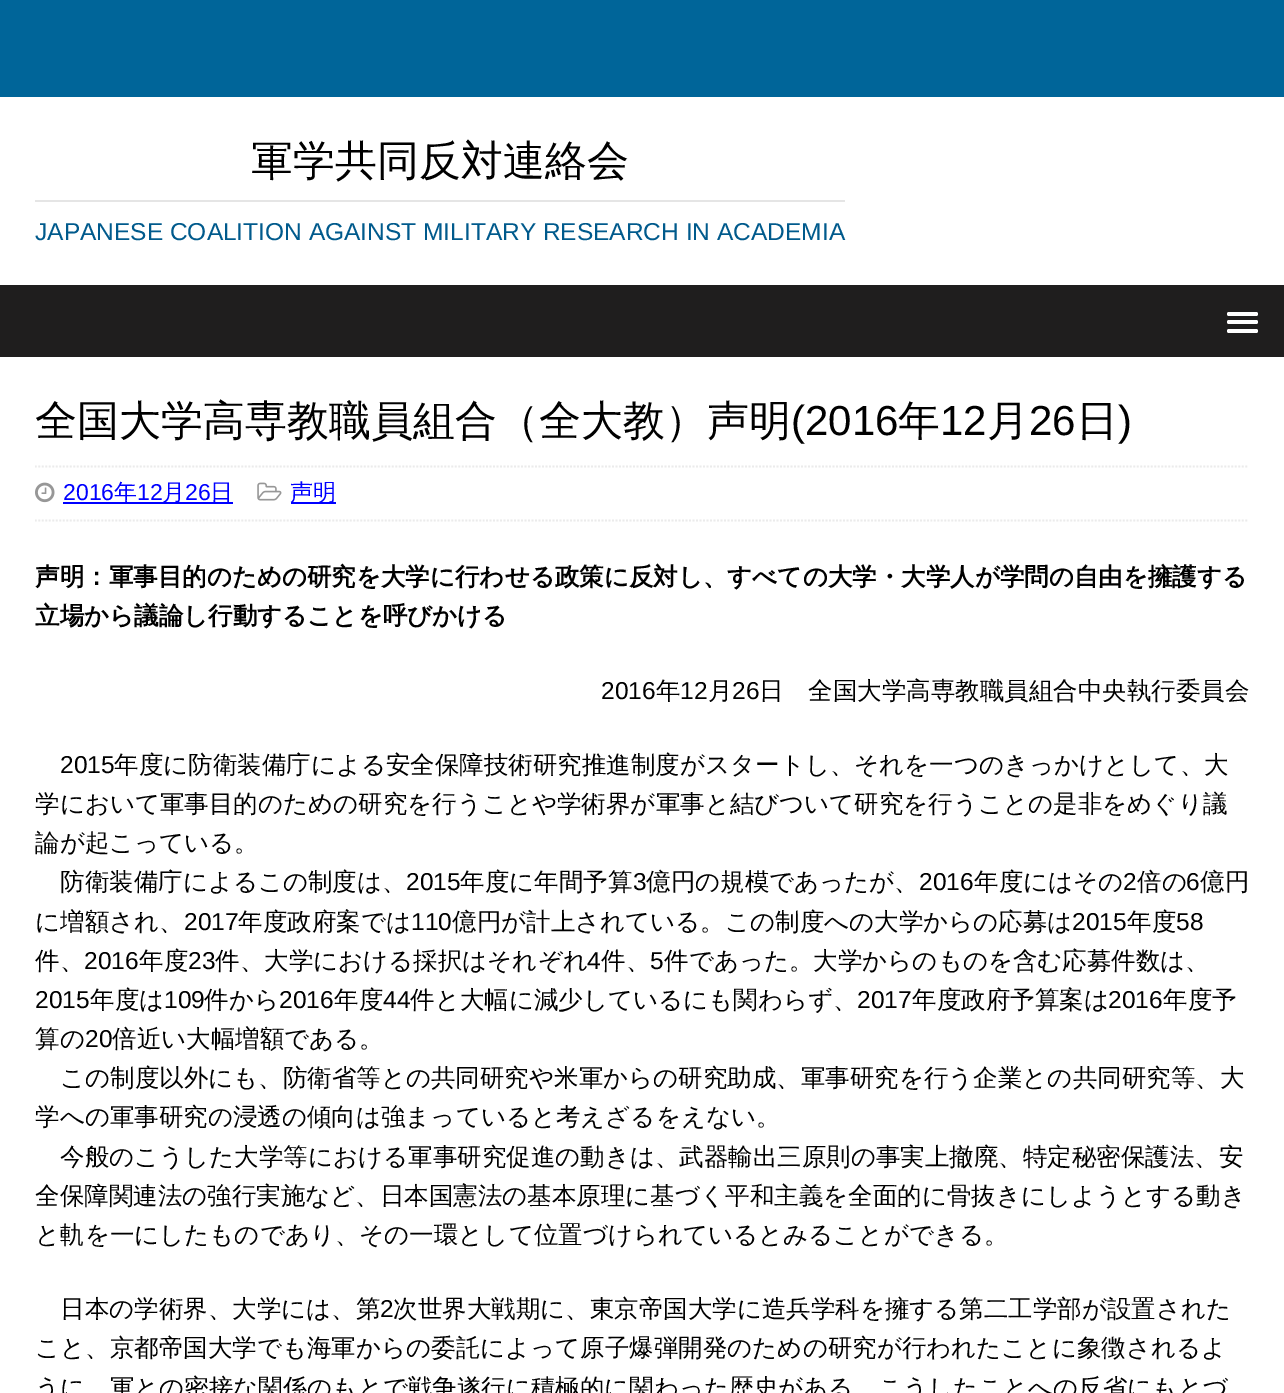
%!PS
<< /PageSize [1284 1393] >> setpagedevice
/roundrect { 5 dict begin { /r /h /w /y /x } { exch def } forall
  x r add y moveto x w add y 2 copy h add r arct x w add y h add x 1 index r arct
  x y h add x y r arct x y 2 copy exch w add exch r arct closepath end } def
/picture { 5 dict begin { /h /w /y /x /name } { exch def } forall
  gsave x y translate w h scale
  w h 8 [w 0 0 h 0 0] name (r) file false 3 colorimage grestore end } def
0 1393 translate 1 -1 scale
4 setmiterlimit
1 setgray
0 0 1284 1393 rectfill
0 0.396 0.6 setrgbcolor
0 0 1284 97 rectfill
/WenQuanYiZenHei-Medium [42 0 0 -42 0 0] selectfont
0 setgray
251 175 moveto (軍学共同反対連絡会) show
0.898 setgray
35 200 810 2 rectfill
/LiberationSans-Regular [24.5 0 0 -24.5 0 0] selectfont
0 0.353 0.549 setrgbcolor
35 240 moveto (JAPANESE COALITION AGAINST MILITARY RESEARCH IN ACADEMIA) show
0.122 0.118 0.118 setrgbcolor
0 285 1284 72 rectfill
1 setgray
1227 312 31 4 2 roundrect fill
1227 320 31 4 2 roundrect fill
1227 329 31 4 2 roundrect fill
/WenQuanYiZenHei-Medium [42 0 0 -42 0 0] selectfont
0 setgray
35 435 moveto (全国大学高専教職員組合（全大教）声明) show
/LiberationSans-Regular [42 0 0 -42 0 0] selectfont
791 435 moveto (\(2016) show
/WenQuanYiZenHei-Medium [42 0 0 -42 0 0] selectfont
898 435 moveto (年) show
/LiberationSans-Regular [42 0 0 -42 0 0] selectfont
940 435 moveto (12) show
/WenQuanYiZenHei-Medium [42 0 0 -42 0 0] selectfont
987 435 moveto (月) show
/LiberationSans-Regular [42 0 0 -42 0 0] selectfont
1029 435 moveto (26) show
/WenQuanYiZenHei-Medium [42 0 0 -42 0 0] selectfont
1076 435 moveto (日) show
/LiberationSans-Regular [42 0 0 -42 0 0] selectfont
1118 435 moveto (\)) show
0.922 setgray
1.8 setlinewidth
[1.75 1.75] 0 setdash
newpath 35 466.5 moveto 1249.5 466.5 lineto stroke
newpath 35 520.5 moveto 1249.5 520.5 lineto stroke
(img1.rgb) 35 482 20 21 picture
/LiberationSans-Regular [23 0 0 -23 0 0] selectfont
0 0 1 setrgbcolor
63 500 moveto (2016) show
63 502 170 2 rectfill
/WenQuanYiZenHei-Medium [23 0 0 -23 0 0] selectfont
114 500 moveto (年) show
/LiberationSans-Regular [23 0 0 -23 0 0] selectfont
137 500 moveto (12) show
/WenQuanYiZenHei-Medium [23 0 0 -23 0 0] selectfont
162 500 moveto (月) show
/LiberationSans-Regular [23 0 0 -23 0 0] selectfont
185 500 moveto (26) show
/WenQuanYiZenHei-Medium [23 0 0 -23 0 0] selectfont
210 500 moveto (日) show
(img2.rgb) 257 482 25 19 picture
291 502 45 2 rectfill
290 500 moveto (声明) show
/WenQuanYiZenHei-Bold [24.5 0 0 -24.5 0 0] selectfont
0 setgray
35 585 moveto (声明：軍事目的のための研究を大学に行わせる政策に反対し、すべての大学・大学人が学問の自由を擁護する) show
35 624 moveto (立場から議論し行動することを呼びかける) show
/LiberationSans-Regular [24.5 0 0 -24.5 0 0] selectfont
601 699 moveto (2016) show
/WenQuanYiZenHei-Medium [24.5 0 0 -24.5 0 0] selectfont
656 699 moveto (年) show
/LiberationSans-Regular [24.5 0 0 -24.5 0 0] selectfont
680 699 moveto (12) show
/WenQuanYiZenHei-Medium [24.5 0 0 -24.5 0 0] selectfont
708 699 moveto (月) show
/LiberationSans-Regular [24.5 0 0 -24.5 0 0] selectfont
732 699 moveto (26) show
/WenQuanYiZenHei-Medium [24.5 0 0 -24.5 0 0] selectfont
759 699 moveto (日　全国大学高専教職員組合中央執行委員会) show
/LiberationSans-Regular [24.5 0 0 -24.5 0 0] selectfont
60 773 moveto (2015) show
/WenQuanYiZenHei-Medium [24.5 0 0 -24.5 0 0] selectfont
114 773 moveto (年度に防衛装備庁による安全保障技術研究推進制度がスタートし、それを一つのきっかけとして、大) show
35 812 moveto (学において軍事目的のための研究を行うことや学術界が軍事と結びついて研究を行うことの是非をめぐり議) show
35 851 moveto (論が起こっている。) show
60 890 moveto (防衛装備庁によるこの制度は、) show
/LiberationSans-Regular [24.5 0 0 -24.5 0 0] selectfont
406 890 moveto (2015) show
/WenQuanYiZenHei-Medium [24.5 0 0 -24.5 0 0] selectfont
460 890 moveto (年度に年間予算) show
/LiberationSans-Regular [24.5 0 0 -24.5 0 0] selectfont
633 890 moveto (3) show
/WenQuanYiZenHei-Medium [24.5 0 0 -24.5 0 0] selectfont
646 890 moveto (億円の規模であったが、) show
/LiberationSans-Regular [24.5 0 0 -24.5 0 0] selectfont
919 890 moveto (2016) show
/WenQuanYiZenHei-Medium [24.5 0 0 -24.5 0 0] selectfont
974 890 moveto (年度にはその) show
/LiberationSans-Regular [24.5 0 0 -24.5 0 0] selectfont
1123 890 moveto (2) show
/WenQuanYiZenHei-Medium [24.5 0 0 -24.5 0 0] selectfont
1137 890 moveto (倍の) show
/LiberationSans-Regular [24.5 0 0 -24.5 0 0] selectfont
1186 890 moveto (6) show
/WenQuanYiZenHei-Medium [24.5 0 0 -24.5 0 0] selectfont
1200 890 moveto (億円) show
35 930 moveto (に増額され、) show
/LiberationSans-Regular [24.5 0 0 -24.5 0 0] selectfont
184 930 moveto (2017) show
/WenQuanYiZenHei-Medium [24.5 0 0 -24.5 0 0] selectfont
238 930 moveto (年度政府案では) show
/LiberationSans-Regular [24.5 0 0 -24.5 0 0] selectfont
411 930 moveto (110) show
/WenQuanYiZenHei-Medium [24.5 0 0 -24.5 0 0] selectfont
452 930 moveto (億円が計上されている。この制度への大学からの応募は) show
/LiberationSans-Regular [24.5 0 0 -24.5 0 0] selectfont
1072 930 moveto (2015) show
/WenQuanYiZenHei-Medium [24.5 0 0 -24.5 0 0] selectfont
1127 930 moveto (年度) show
/LiberationSans-Regular [24.5 0 0 -24.5 0 0] selectfont
1176 930 moveto (58) show
/WenQuanYiZenHei-Medium [24.5 0 0 -24.5 0 0] selectfont
35 969 moveto (件、) show
/LiberationSans-Regular [24.5 0 0 -24.5 0 0] selectfont
84 969 moveto (2016) show
/WenQuanYiZenHei-Medium [24.5 0 0 -24.5 0 0] selectfont
139 969 moveto (年度) show
/LiberationSans-Regular [24.5 0 0 -24.5 0 0] selectfont
188 969 moveto (23) show
/WenQuanYiZenHei-Medium [24.5 0 0 -24.5 0 0] selectfont
215 969 moveto (件、大学における採択はそれぞれ) show
/LiberationSans-Regular [24.5 0 0 -24.5 0 0] selectfont
587 969 moveto (4) show
/WenQuanYiZenHei-Medium [24.5 0 0 -24.5 0 0] selectfont
601 969 moveto (件、) show
/LiberationSans-Regular [24.5 0 0 -24.5 0 0] selectfont
650 969 moveto (5) show
/WenQuanYiZenHei-Medium [24.5 0 0 -24.5 0 0] selectfont
664 969 moveto (件であった。大学からのものを含む応募件数は、) show
/LiberationSans-Regular [24.5 0 0 -24.5 0 0] selectfont
35 1008 moveto (2015) show
/WenQuanYiZenHei-Medium [24.5 0 0 -24.5 0 0] selectfont
90 1008 moveto (年度は) show
/LiberationSans-Regular [24.5 0 0 -24.5 0 0] selectfont
164 1008 moveto (109) show
/WenQuanYiZenHei-Medium [24.5 0 0 -24.5 0 0] selectfont
204 1008 moveto (件から) show
/LiberationSans-Regular [24.5 0 0 -24.5 0 0] selectfont
279 1008 moveto (2016) show
/WenQuanYiZenHei-Medium [24.5 0 0 -24.5 0 0] selectfont
334 1008 moveto (年度) show
/LiberationSans-Regular [24.5 0 0 -24.5 0 0] selectfont
383 1008 moveto (44) show
/WenQuanYiZenHei-Medium [24.5 0 0 -24.5 0 0] selectfont
410 1008 moveto (件と大幅に減少しているにも関わらず、) show
/LiberationSans-Regular [24.5 0 0 -24.5 0 0] selectfont
857 1008 moveto (2017) show
/WenQuanYiZenHei-Medium [24.5 0 0 -24.5 0 0] selectfont
912 1008 moveto (年度政府予算案は) show
/LiberationSans-Regular [24.5 0 0 -24.5 0 0] selectfont
1108 1008 moveto (2016) show
/WenQuanYiZenHei-Medium [24.5 0 0 -24.5 0 0] selectfont
1163 1008 moveto (年度予) show
35 1047 moveto (算の) show
/LiberationSans-Regular [24.5 0 0 -24.5 0 0] selectfont
85 1047 moveto (20) show
/WenQuanYiZenHei-Medium [24.5 0 0 -24.5 0 0] selectfont
112 1047 moveto (倍近い大幅増額である。) show
60 1086 moveto (この制度以外にも、防衛省等との共同研究や米軍からの研究助成、軍事研究を行う企業との共同研究等、大) show
35 1125 moveto (学への軍事研究の浸透の傾向は強まっていると考えざるをえない。) show
60 1165 moveto (今般のこうした大学等における軍事研究促進の動きは、武器輸出三原則の事実上撤廃、特定秘密保護法、安) show
35 1204 moveto (全保障関連法の強行実施など、日本国憲法の基本原理に基づく平和主義を全面的に骨抜きにしようとする動き) show
35 1243 moveto (と軌を一にしたものであり、その一環として位置づけられているとみることができる。) show
60 1317 moveto (日本の学術界、大学には、第) show
/LiberationSans-Regular [24.5 0 0 -24.5 0 0] selectfont
380 1317 moveto (2) show
/WenQuanYiZenHei-Medium [24.5 0 0 -24.5 0 0] selectfont
393 1317 moveto (次世界大戦期に、東京帝国大学に造兵学科を擁する第二工学部が設置された) show
35 1356 moveto (こと、京都帝国大学でも海軍からの委託によって原子爆弾開発のための研究が行われたことに象徴されるよ) show
35 1396 moveto (うに、軍との密接な関係のもとで戦争遂行に積極的に関わった歴史がある。こうしたことへの反省にもとづ) show
showpage
